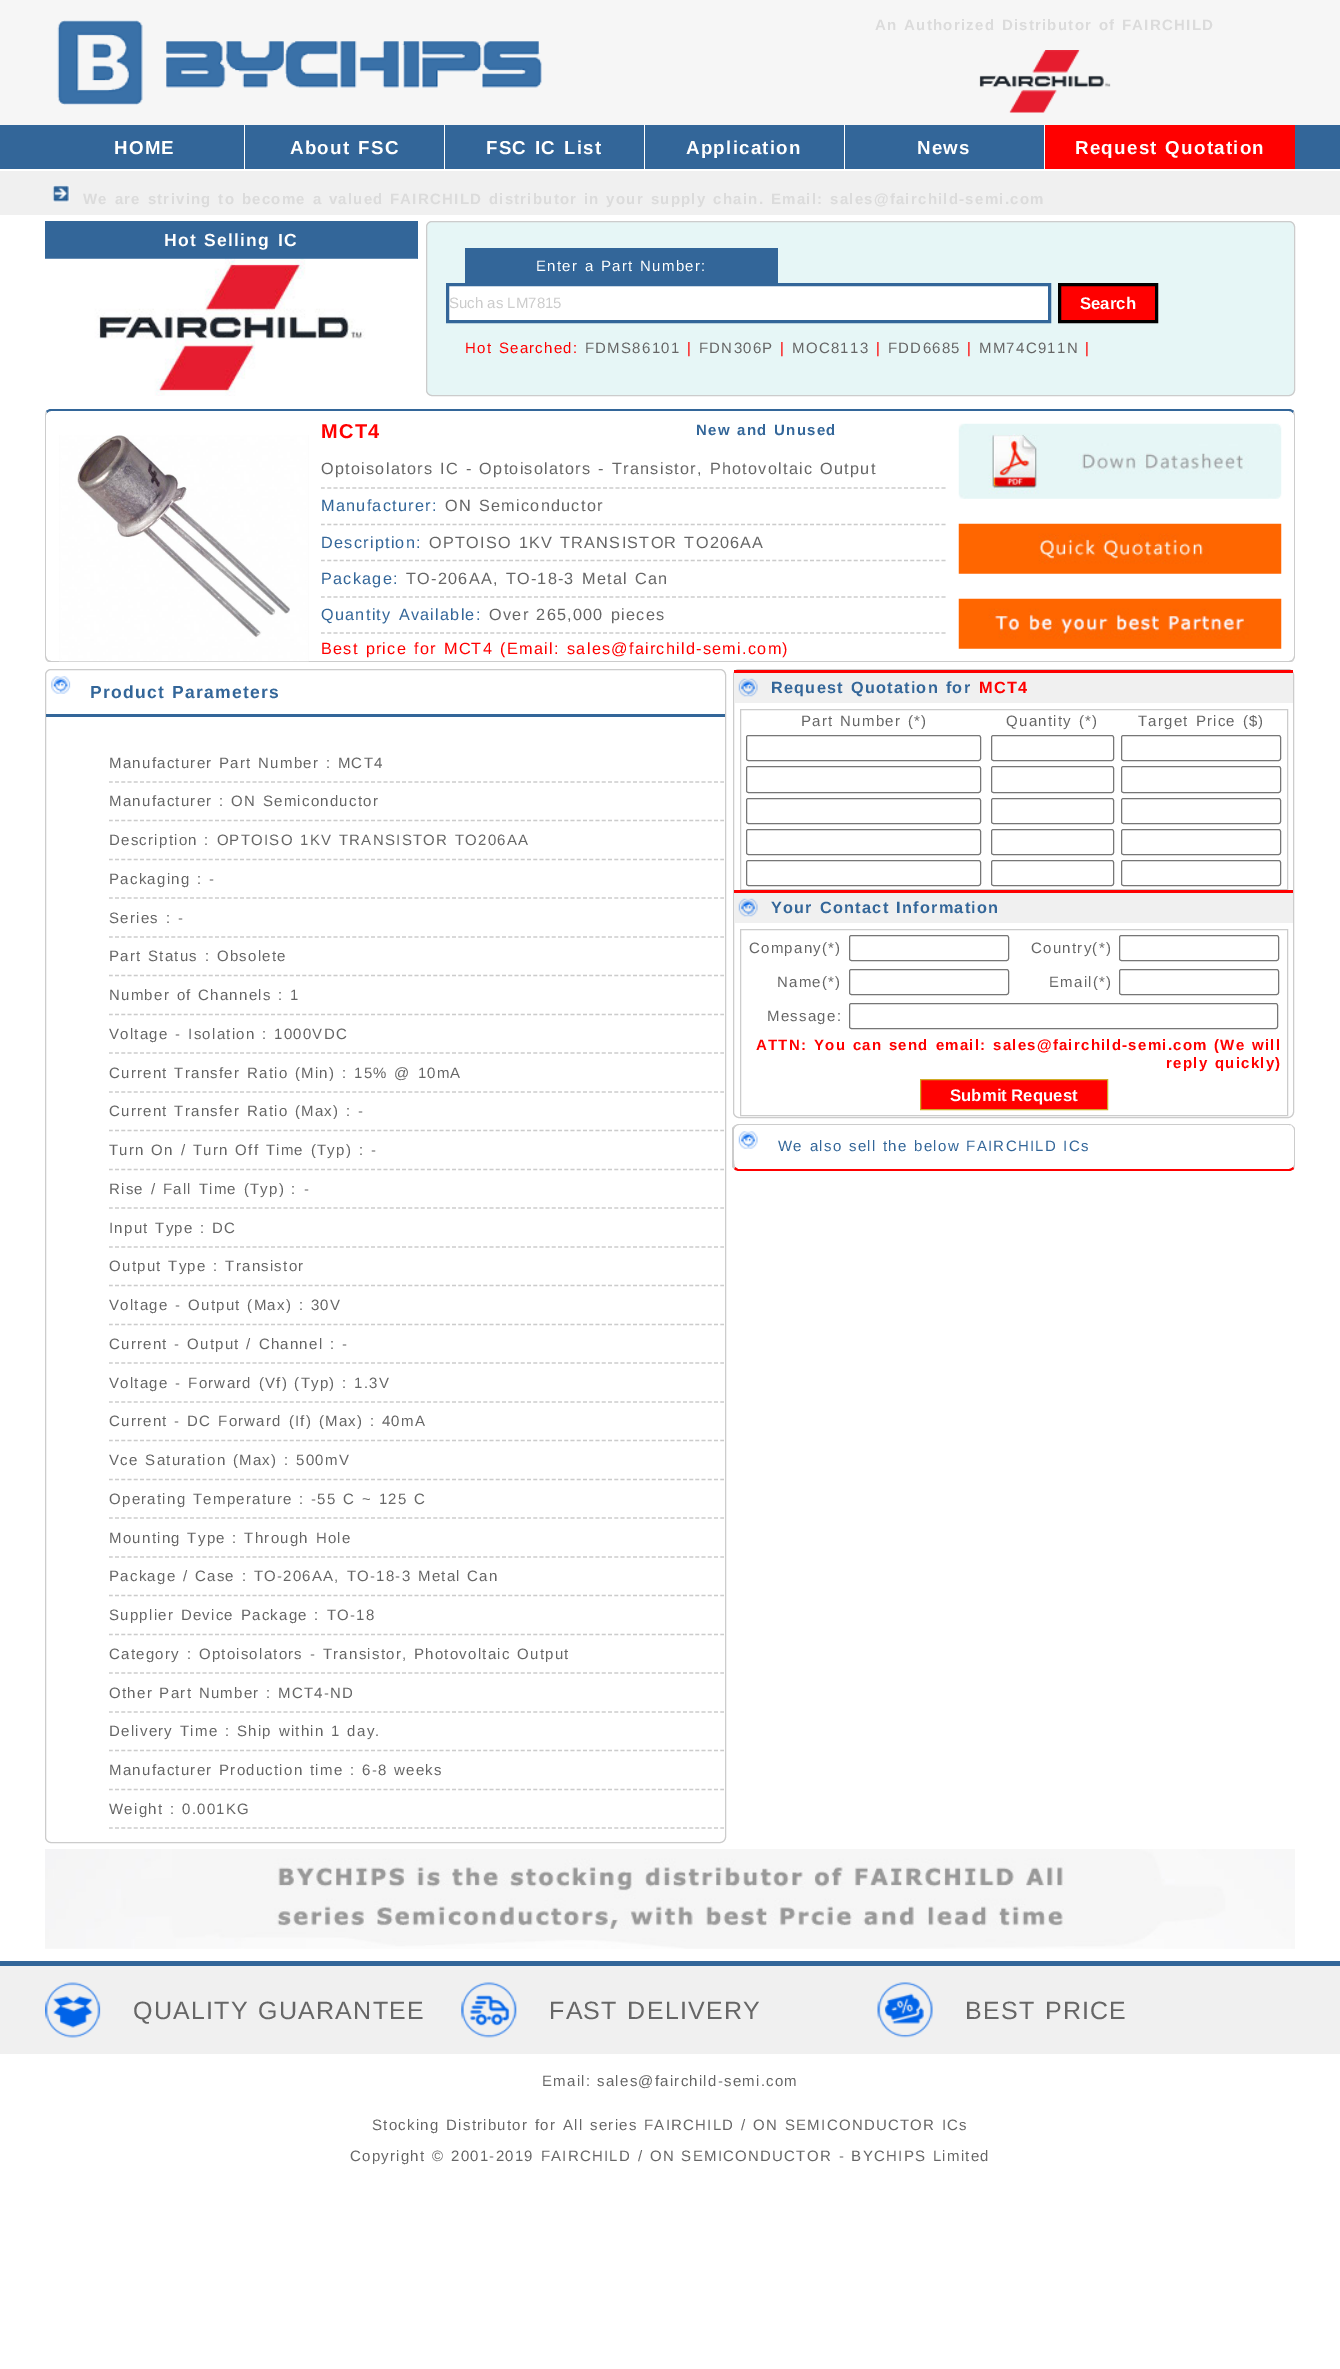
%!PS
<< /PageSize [1340 2369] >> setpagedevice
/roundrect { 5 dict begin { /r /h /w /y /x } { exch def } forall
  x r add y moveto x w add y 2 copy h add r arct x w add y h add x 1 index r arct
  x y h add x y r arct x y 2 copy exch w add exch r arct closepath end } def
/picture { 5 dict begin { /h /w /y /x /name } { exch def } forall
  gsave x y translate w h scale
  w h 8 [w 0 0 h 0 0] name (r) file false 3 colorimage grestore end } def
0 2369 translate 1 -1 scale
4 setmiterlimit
1 setgray
0 0 1340 2369 rectfill
0.965 setgray
0 0 1340 125 rectfill
(img1.rgb) 57 20 485 85 picture
/LiberationSans-Bold [15 0 0 -15 0 0] selectfont
0.859 setgray
875 30 moveto 1.25 0 32 1.25 0 (An Authorized Distributor of FAIRCHILD) awidthshow
(img2.rgb) 979 50 132 63 picture
0.2 0.4 0.6 setrgbcolor
0 125 1340 44 rectfill
1 setgray
244 125 1 44 rectfill
/LiberationSans-Bold [18.75 0 0 -18.75 0 0] selectfont
114 154 moveto 1.25 0 (HOME) ashow
444 125 1 44 rectfill
290 154 moveto 1.25 0 32 1.25 0 (About FSC) awidthshow
644 125 1 44 rectfill
486 154 moveto 1.25 0 32 1.25 0 (FSC IC List) awidthshow
844 125 1 44 rectfill
686 154 moveto 1.25 0 (Application) ashow
1044 125 1 44 rectfill
917 154 moveto 1.25 0 (News) ashow
1 0 0 setrgbcolor
1045 125 250 44 rectfill
1 setgray
1075 154 moveto 1.25 0 32 1.25 0 (Request Quotation) awidthshow
0.941 setgray
0 171 1340 44 rectfill
(img3.rgb) 52 185 18 18 picture
/LiberationSans-Bold [15 0 0 -15 0 0] selectfont
0.859 setgray
83 204 moveto 1.25 0 32 1.25 0 (We are striving to become a valued) awidthshow
390 204 moveto 1.25 0 32 1.25 0 (FAIRCHILD distributor) awidthshow
584 204 moveto 1.25 0 32 1.25 0 (in your supply chain.) awidthshow
771 204 moveto 1.25 0 (Email:) ashow
830 204 moveto 1.25 0 (sales@fairchild-semi.com) ashow
0.2 0.4 0.6 setrgbcolor
45 221 373 38 rectfill
/LiberationSans-Bold [17.5 0 0 -17.5 0 0] selectfont
1 setgray
164 246 moveto 1.25 0 32 1.25 0 (Hot Selling IC) awidthshow
(img4.rgb) 45 258 373 138 picture
0.902 0.965 0.965 setrgbcolor
426.5 221.5 868 174 5.5 roundrect gsave fill grestore
0.8 setgray
stroke
0.2 0.4 0.6 setrgbcolor
465 248 313 35 rectfill
/LiberationSans-Regular [15 0 0 -15 0 0] selectfont
1 setgray
536 271 moveto 1.25 0 32 1.25 0 (Enter a Part Number:) awidthshow
newpath 447.5 284.5 moveto 1049.5 284.5 lineto 1049.5 321.5 lineto 447.5 321.5 lineto closepath gsave fill grestore
0.2 0.4 0.6 setrgbcolor
3 setlinewidth
stroke
0.8 setgray
449 308 moveto (Such as LM7815) show
1 0 0 setrgbcolor
newpath 1059.5 284.5 moveto 1156.5 284.5 lineto 1156.5 321.5 lineto 1059.5 321.5 lineto closepath gsave fill grestore
0 setgray
stroke
/LiberationSans-Bold [16.75 0 0 -16.75 0 0] selectfont
1 setgray
1080 309 moveto (Search) show
/LiberationSans-Regular [15 0 0 -15 0 0] selectfont
1 0 0 setrgbcolor
465 353 moveto 1.25 0 32 1.25 0 (Hot Searched:) awidthshow
0.4 setgray
585 353 moveto 1.25 0 (FDMS86101) ashow
1 0 0 setrgbcolor
687 353 moveto 1.25 0 (|) ashow
0.4 setgray
699 353 moveto 1.25 0 (FDN306P) ashow
1 0 0 setrgbcolor
780 353 moveto 1.25 0 (|) ashow
0.4 setgray
792 353 moveto 1.25 0 (MOC8113) ashow
1 0 0 setrgbcolor
876 353 moveto 1.25 0 (|) ashow
0.4 setgray
888 353 moveto 1.25 0 (FDD6685) ashow
1 0 0 setrgbcolor
967 353 moveto 1.25 0 (|) ashow
0.4 setgray
979 353 moveto 1.25 0 (MM74C911N) ashow
1 0 0 setrgbcolor
1085 353 moveto 1.25 0 (|) ashow
0.2 0.4 0.6 setrgbcolor
newpath 51 409 moveto 49 409 48 410 46 411 curveto 47 413 lineto 48 412 49 411 51 411 curveto 1289 411 lineto 1291 411 1292 412 1293 413 curveto 1294 411 lineto 1292 410 1291 409 1289 409 curveto closepath fill
0.8 setgray
newpath 1294 411 moveto 1295 415 lineto 1295 656 lineto 1295 658 1294 659 1293 661 curveto 1292 660 lineto 1293 659 1294 657 1294 656 curveto 1294 415 lineto 1293 413 lineto closepath fill
newpath 1293 661 moveto 1292 662 1290 662 1289 662 curveto 51 662 lineto 50 662 48 662 47 661 curveto 48 660 lineto 51 661 lineto 1289 661 lineto 1292 660 lineto closepath fill
newpath 45 415 moveto 45 656 lineto 45 658 46 660 47 661 curveto 48 660 lineto 47 659 46 657 46 656 curveto 46 415 lineto 47 413 lineto 46 411 lineto closepath fill
(img5.rgb) 59 435 250 227 picture
/LiberationSans-Bold [20 0 0 -20 0 0] selectfont
1 0 0 setrgbcolor
321 438 moveto 1.25 0 (MCT4) ashow
/LiberationSans-Bold [15 0 0 -15 0 0] selectfont
0.2 0.4 0.6 setrgbcolor
696 435 moveto 1.25 0 32 1.25 0 (New and Unused) awidthshow
0.8 setgray
1.2 setlinewidth
[3.75 2.52] 0 setdash
newpath 321 488 moveto 946 488 lineto stroke
/LiberationSans-Regular [16.25 0 0 -16.25 0 0] selectfont
0.4 setgray
321 474 moveto 1.25 0 32 1.25 0 (Optoisolators IC - Optoisolators - Transistor, Photovoltaic Output) awidthshow
0.8 setgray
newpath 321 524.5 moveto 946 524.5 lineto stroke
0.2 0.4 0.6 setrgbcolor
321 511 moveto 1.25 0 (Manufacturer:) ashow
0.4 setgray
445 511 moveto 1.25 0 32 1.25 0 (ON Semiconductor) awidthshow
0.8 setgray
newpath 321 560.5 moveto 946 560.5 lineto stroke
0.2 0.4 0.6 setrgbcolor
321 548 moveto 1.25 0 (Description:) ashow
0.4 setgray
429 548 moveto 1.25 0 32 1.25 0 (OPTOISO 1KV TRANSISTOR TO206AA) awidthshow
0.8 setgray
newpath 321 597 moveto 946 597 lineto stroke
0.2 0.4 0.6 setrgbcolor
321 584 moveto 1.25 0 (Package:) ashow
0.4 setgray
406 584 moveto 1.25 0 32 1.25 0 (TO-206AA, TO-18-3 Metal Can) awidthshow
0.8 setgray
newpath 321 633 moveto 946 633 lineto stroke
0.2 0.4 0.6 setrgbcolor
321 620 moveto 1.25 0 32 1.25 0 (Quantity Available:) awidthshow
0.4 setgray
489 620 moveto 1.25 0 32 1.25 0 (Over 265,000 pieces) awidthshow
1 0 0 setrgbcolor
321 654 moveto 1.25 0 32 1.25 0 (Best price for MCT4) awidthshow
500 654 moveto 1.25 0 (\(Email:) ashow
567 654 moveto 1.25 0 (sales@fairchild-semi.com\)) ashow
(img6.rgb) 958 423 324 76 picture
(img7.rgb) 958 523 324 51 picture
(img8.rgb) 958 598 324 51 picture
0.8 setgray
1 setlinewidth
[] 0 setdash
45.5 669.5 680 1173 5.5 roundrect stroke
(img9.rgb) 51 676 20 18 picture
0.2 0.4 0.6 setrgbcolor
46 714 679 3 rectfill
/LiberationSans-Bold [17.5 0 0 -17.5 0 0] selectfont
90 698 moveto 1.25 0 32 1.25 0 (Product Parameters) awidthshow
0.8 setgray
1.2 setlinewidth
[3.75 2.49] 0 setdash
newpath 109 782 moveto 724 782 lineto stroke
/LiberationSans-Regular [15 0 0 -15 0 0] selectfont
0.4 setgray
109 768 moveto 1.25 0 32 1.25 0 (Manufacturer Part Number : MCT4) awidthshow
0.8 setgray
newpath 109 820.5 moveto 724 820.5 lineto stroke
0.4 setgray
109 806 moveto 1.25 0 32 1.25 0 (Manufacturer : ON Semiconductor) awidthshow
0.8 setgray
newpath 109 859.5 moveto 724 859.5 lineto stroke
0.4 setgray
109 845 moveto 1.25 0 32 1.25 0 (Description : OPTOISO 1KV TRANSISTOR TO206AA) awidthshow
0.8 setgray
newpath 109 898 moveto 724 898 lineto stroke
0.4 setgray
109 884 moveto 1.25 0 32 1.25 0 (Packaging : -) awidthshow
0.8 setgray
newpath 109 937 moveto 724 937 lineto stroke
0.4 setgray
109 923 moveto 1.25 0 32 1.25 0 (Series : -) awidthshow
0.8 setgray
newpath 109 975.5 moveto 724 975.5 lineto stroke
0.4 setgray
109 961 moveto 1.25 0 32 1.25 0 (Part Status : Obsolete) awidthshow
0.8 setgray
newpath 109 1014.5 moveto 724 1014.5 lineto stroke
0.4 setgray
109 1000 moveto 1.25 0 32 1.25 0 (Number of Channels : 1) awidthshow
0.8 setgray
newpath 109 1053 moveto 724 1053 lineto stroke
0.4 setgray
109 1039 moveto 1.25 0 32 1.25 0 (Voltage - Isolation : 1000VDC) awidthshow
0.8 setgray
newpath 109 1092 moveto 724 1092 lineto stroke
0.4 setgray
109 1078 moveto 1.25 0 32 1.25 0 (Current Transfer Ratio \(Min\) : 15% @ 10mA) awidthshow
0.8 setgray
newpath 109 1130.5 moveto 724 1130.5 lineto stroke
0.4 setgray
109 1116 moveto 1.25 0 32 1.25 0 (Current Transfer Ratio \(Max\) : -) awidthshow
0.8 setgray
newpath 109 1169.5 moveto 724 1169.5 lineto stroke
0.4 setgray
109 1155 moveto 1.25 0 32 1.25 0 (Turn On / Turn Off Time \(Typ\) : -) awidthshow
0.8 setgray
newpath 109 1208 moveto 724 1208 lineto stroke
0.4 setgray
109 1194 moveto 1.25 0 32 1.25 0 (Rise / Fall Time \(Typ\) : -) awidthshow
0.8 setgray
newpath 109 1247 moveto 724 1247 lineto stroke
0.4 setgray
109 1233 moveto 1.25 0 32 1.25 0 (Input Type : DC) awidthshow
0.8 setgray
newpath 109 1285.5 moveto 724 1285.5 lineto stroke
0.4 setgray
109 1271 moveto 1.25 0 32 1.25 0 (Output Type : Transistor) awidthshow
0.8 setgray
newpath 109 1324.5 moveto 724 1324.5 lineto stroke
0.4 setgray
109 1310 moveto 1.25 0 32 1.25 0 (Voltage - Output \(Max\) : 30V) awidthshow
0.8 setgray
newpath 109 1363 moveto 724 1363 lineto stroke
0.4 setgray
109 1349 moveto 1.25 0 32 1.25 0 (Current - Output / Channel : -) awidthshow
0.8 setgray
newpath 109 1402 moveto 724 1402 lineto stroke
0.4 setgray
109 1388 moveto 1.25 0 32 1.25 0 (Voltage - Forward \(Vf\) \(Typ\) : 1.3V) awidthshow
0.8 setgray
newpath 109 1440.5 moveto 724 1440.5 lineto stroke
0.4 setgray
109 1426 moveto 1.25 0 32 1.25 0 (Current - DC Forward \(If\) \(Max\) : 40mA) awidthshow
0.8 setgray
newpath 109 1479.5 moveto 724 1479.5 lineto stroke
0.4 setgray
109 1465 moveto 1.25 0 32 1.25 0 (Vce Saturation \(Max\) : 500mV) awidthshow
0.8 setgray
newpath 109 1518 moveto 724 1518 lineto stroke
0.4 setgray
109 1504 moveto 1.25 0 32 1.25 0 (Operating Temperature : -55 C ~ 125 C) awidthshow
0.8 setgray
newpath 109 1557 moveto 724 1557 lineto stroke
0.4 setgray
109 1543 moveto 1.25 0 32 1.25 0 (Mounting Type : Through Hole) awidthshow
0.8 setgray
newpath 109 1595.5 moveto 724 1595.5 lineto stroke
0.4 setgray
109 1581 moveto 1.25 0 32 1.25 0 (Package / Case : TO-206AA, TO-18-3 Metal Can) awidthshow
0.8 setgray
newpath 109 1634.5 moveto 724 1634.5 lineto stroke
0.4 setgray
109 1620 moveto 1.25 0 32 1.25 0 (Supplier Device Package : TO-18) awidthshow
0.8 setgray
newpath 109 1673 moveto 724 1673 lineto stroke
0.4 setgray
109 1659 moveto 1.25 0 32 1.25 0 (Category : Optoisolators - Transistor, Photovoltaic Output) awidthshow
0.8 setgray
newpath 109 1712 moveto 724 1712 lineto stroke
0.4 setgray
109 1698 moveto 1.25 0 32 1.25 0 (Other Part Number : MCT4-ND) awidthshow
0.8 setgray
newpath 109 1750.5 moveto 724 1750.5 lineto stroke
0.4 setgray
109 1736 moveto 1.25 0 32 1.25 0 (Delivery Time : Ship within 1 day.) awidthshow
0.8 setgray
newpath 109 1789.5 moveto 724 1789.5 lineto stroke
0.4 setgray
109 1775 moveto 1.25 0 32 1.25 0 (Manufacturer Production time : 6-8 weeks) awidthshow
0.8 setgray
newpath 109 1828 moveto 724 1828 lineto stroke
0.4 setgray
109 1814 moveto 1.25 0 32 1.25 0 (Weight : 0.001KG) awidthshow
0.8 setgray
1 setlinewidth
[] 0 setdash
733.5 669.5 560 448 5.5 roundrect stroke
0.941 setgray
734 673 559 30 rectfill
(img10.rgb) 738 678 20 19 picture
1 0 0 setrgbcolor
734 670 559 3 rectfill
/LiberationSans-Bold [16.25 0 0 -16.25 0 0] selectfont
0.2 0.4 0.6 setrgbcolor
771 693 moveto 1.25 0 32 1.25 0 (Request Quotation for) awidthshow
1 0 0 setrgbcolor
979 693 moveto 1.25 0 (MCT4) ashow
0.8 setgray
740.5 709.5 547 180 rectstroke
/LiberationSans-Regular [15 0 0 -15 0 0] selectfont
0.4 setgray
801 726 moveto 1.25 0 32 1.25 0 (Part Number \(*\)) awidthshow
1006 726 moveto 1.25 0 32 1.25 0 (Quantity \(*\)) awidthshow
1138 726 moveto 1.25 0 32 1.25 0 (Target Price \($\)) awidthshow
0.463 setgray
746.5 735.5 234 25 2 roundrect stroke
991.5 735.5 122 25 2 roundrect stroke
1121.5 735.5 159 25 2 roundrect stroke
746.5 766.5 234 26 2 roundrect stroke
991.5 766.5 122 26 2 roundrect stroke
1121.5 766.5 159 26 2 roundrect stroke
746.5 798.5 234 25 2 roundrect stroke
991.5 798.5 122 25 2 roundrect stroke
1121.5 798.5 159 25 2 roundrect stroke
746.5 829.5 234 25 2 roundrect stroke
991.5 829.5 122 25 2 roundrect stroke
1121.5 829.5 159 25 2 roundrect stroke
746.5 860.5 234 25 2 roundrect stroke
991.5 860.5 122 25 2 roundrect stroke
1121.5 860.5 159 25 2 roundrect stroke
0.941 setgray
734 893 559 30 rectfill
(img10.rgb) 738 898 20 19 picture
1 0 0 setrgbcolor
734 890 559 3 rectfill
/LiberationSans-Bold [16.25 0 0 -16.25 0 0] selectfont
0.2 0.4 0.6 setrgbcolor
771 913 moveto 1.25 0 32 1.25 0 (Your Contact Information) awidthshow
0.8 setgray
740.5 929.5 547 186 rectstroke
/LiberationSans-Regular [15 0 0 -15 0 0] selectfont
0.4 setgray
749 953 moveto 1.25 0 (Company\(*\)) ashow
0.463 setgray
849.5 935.5 159 25 2 roundrect stroke
0.4 setgray
1031 953 moveto 1.25 0 (Country\(*\)) ashow
0.463 setgray
1119.5 935.5 159 25 2 roundrect stroke
0.4 setgray
777 987 moveto 1.25 0 (Name\(*\)) ashow
0.463 setgray
849.5 969.5 159 25 2 roundrect stroke
0.4 setgray
1049 987 moveto 1.25 0 (Email\(*\)) ashow
0.463 setgray
1119.5 969.5 159 25 2 roundrect stroke
0.4 setgray
767 1021 moveto 1.25 0 (Message:) ashow
0.463 setgray
849.5 1003.5 428 25 2 roundrect stroke
/LiberationSans-Bold [15 0 0 -15 0 0] selectfont
1 0 0 setrgbcolor
756 1050 moveto 1.25 0 32 1.25 0 (ATTN: You can send email:) awidthshow
993 1050 moveto 1.25 0 (sales@fairchild-semi.com) ashow
1214 1050 moveto 1.25 0 32 1.25 0 (\(We will) awidthshow
1166 1068 moveto 1.25 0 32 1.25 0 (reply quickly\)) awidthshow
newpath 920.5 1079.5 moveto 1107.5 1079.5 lineto 1107.5 1109.5 lineto 920.5 1109.5 lineto closepath gsave fill grestore
0.812 0.671 0.145 setrgbcolor
stroke
/LiberationSans-Bold [16.75 0 0 -16.75 0 0] selectfont
1 setgray
950 1101 moveto (Submit Request) show
(img11.rgb) 738 1131 20 18 picture
0.8 setgray
newpath 739 1124 moveto 737 1124 736 1125 734 1126 curveto 735 1127 lineto 736 1126 737 1125 739 1125 curveto 1289 1125 lineto 1290 1125 1292 1125 1292 1126 curveto 1293 1126 lineto 1292 1125 1290 1124 1289 1124 curveto closepath fill
newpath 1293 1126 moveto 1294 1127 1295 1128 1295 1130 curveto 1295 1165 lineto 1295 1166 1294 1168 1294 1169 curveto 1293 1167 lineto 1294 1165 lineto 1294 1130 lineto 1294 1128 1293 1127 1292 1126 curveto closepath fill
1 0 0 setrgbcolor
newpath 1294 1169 moveto 1292 1170 1291 1171 1289 1171 curveto 739 1171 lineto 737 1171 735 1170 734 1169 curveto 735 1167 lineto 738 1169 lineto 1289 1169 lineto 1290 1169 1292 1168 1293 1167 curveto closepath fill
0.8 setgray
newpath 732 1128 moveto 734 1126 lineto 735 1127 lineto 734 1129 lineto 734 1132 733 1165 735 1167 curveto 734 1169 lineto 732 1167 lineto closepath fill
/LiberationSans-Regular [15 0 0 -15 0 0] selectfont
0.2 0.4 0.6 setrgbcolor
778 1151 moveto 1.25 0 32 1.25 0 (We also sell the below FAIRCHILD ICs) awidthshow
(img12.rgb) 45 1849 1250 100 picture
0.941 setgray
0 1966 1340 88 rectfill
0.2 0.4 0.6 setrgbcolor
0 1961 1340 5 rectfill
(img13.rgb) 45 1982 56 56 picture
/LiberationSans-Regular [25 0 0 -25 0 0] selectfont
0.4 setgray
133 2019 moveto 1.25 0 32 1.25 0 (QUALITY GUARANTEE) awidthshow
(img14.rgb) 461 1982 56 56 picture
549 2019 moveto 1.25 0 32 1.25 0 (FAST DELIVERY) awidthshow
(img15.rgb) 877 1982 56 56 picture
965 2019 moveto 1.25 0 32 1.25 0 (BEST PRICE) awidthshow
/LiberationSans-Regular [15 0 0 -15 0 0] selectfont
542 2086 moveto 1.25 0 (Email:) ashow
597 2086 moveto 1.25 0 (sales@fairchild-semi.com) ashow
372 2130 moveto 1.25 0 32 1.25 0 (Stocking Distributor for All series FAIRCHILD / ON SEMICONDUCTOR ICs) awidthshow
350 2161 moveto 1.25 0 32 1.25 0 (Copyright © 2001-2019 FAIRCHILD / ON SEMICONDUCTOR - BYCHIPS Limited) awidthshow
showpage
